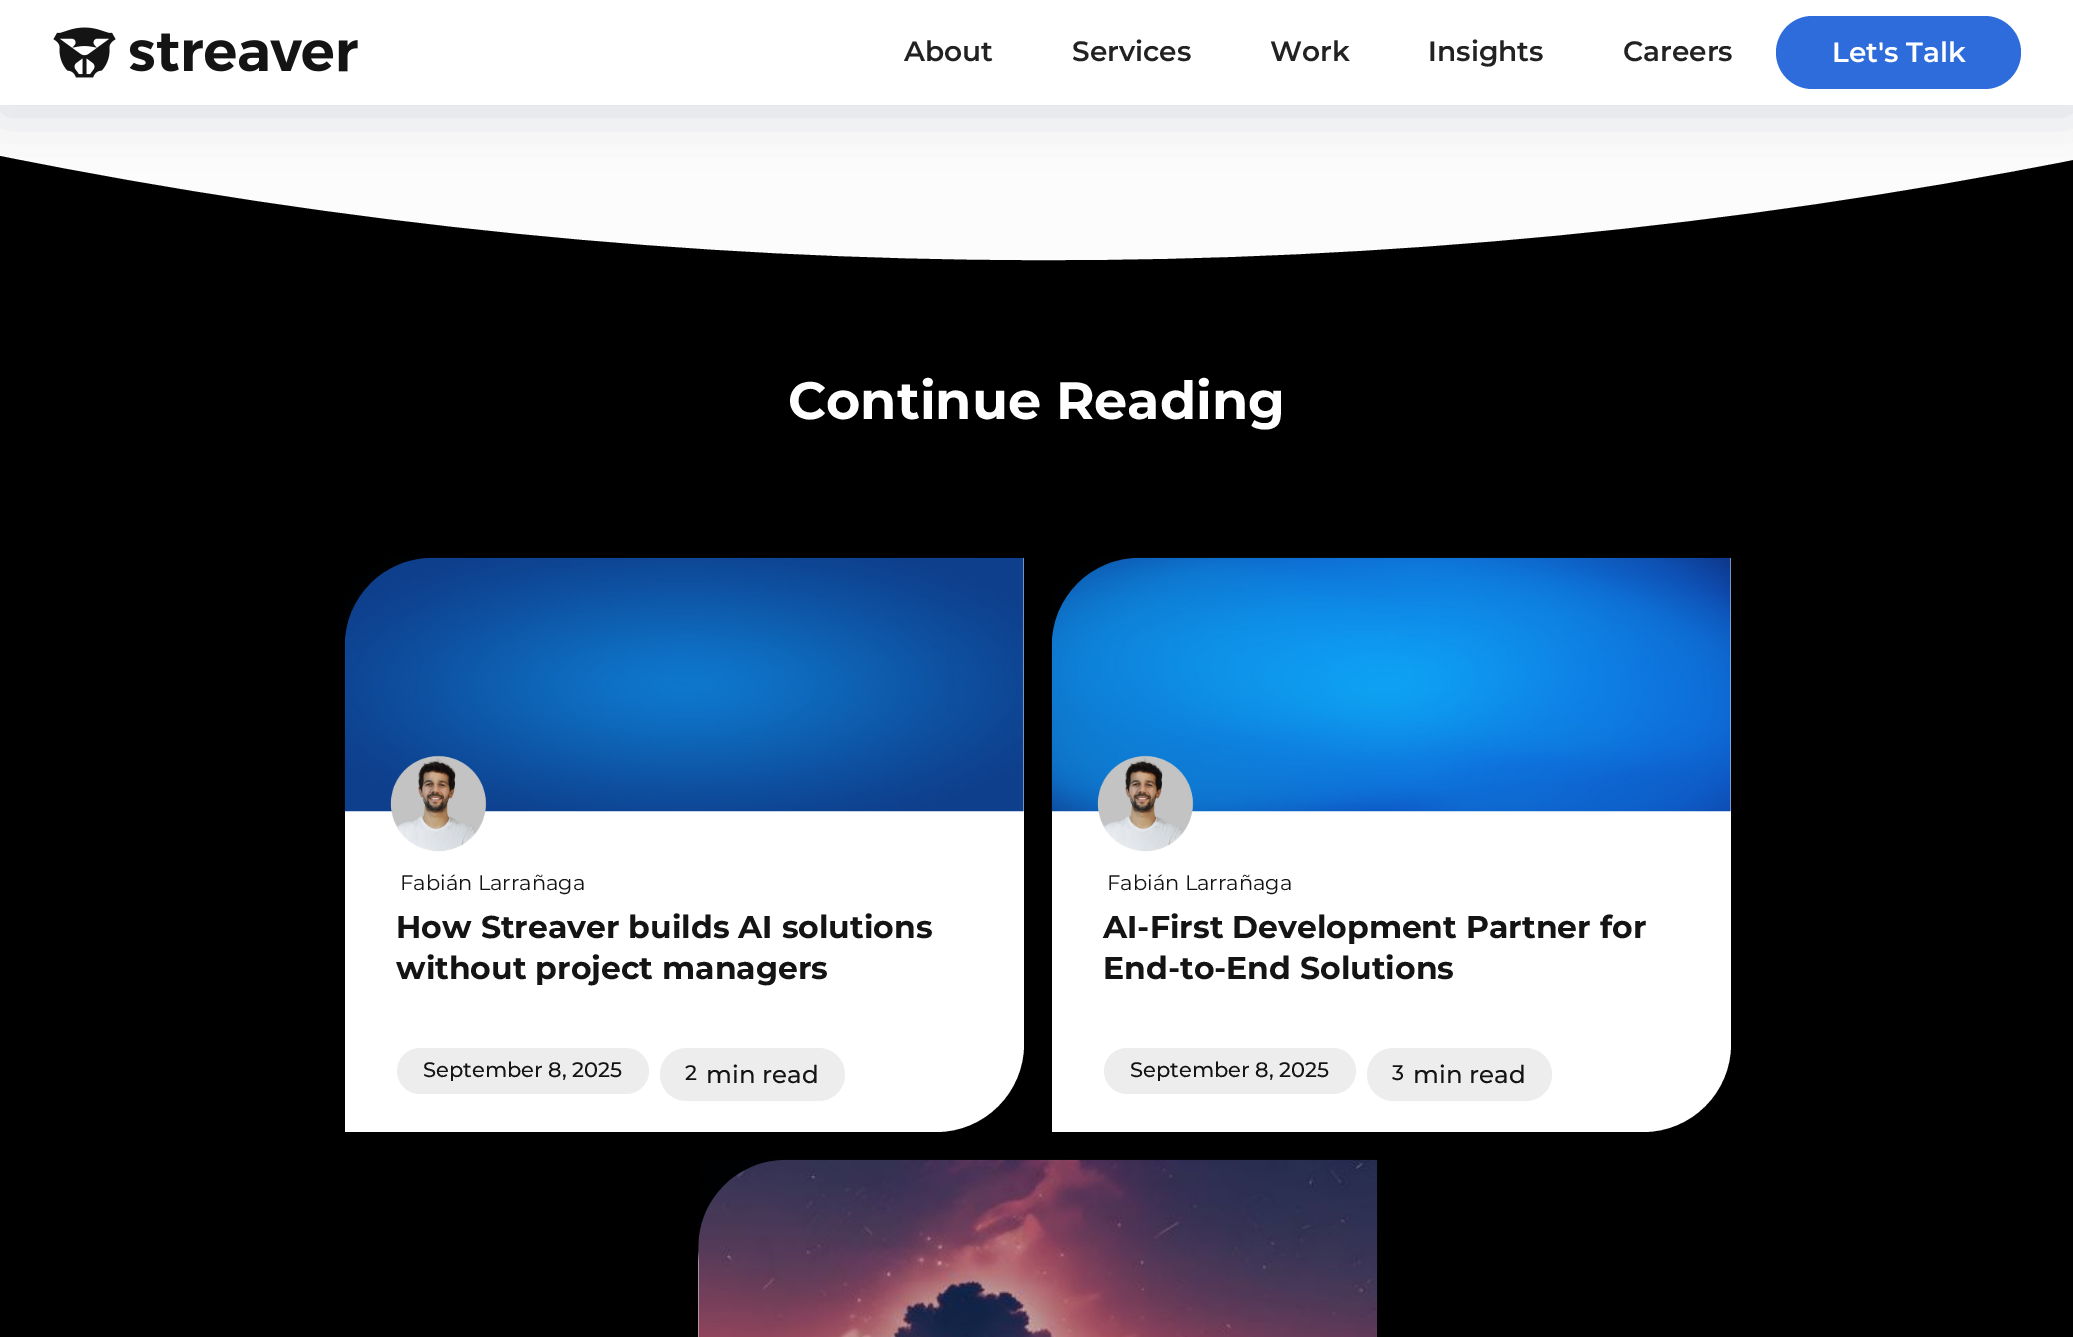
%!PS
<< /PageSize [2073 1337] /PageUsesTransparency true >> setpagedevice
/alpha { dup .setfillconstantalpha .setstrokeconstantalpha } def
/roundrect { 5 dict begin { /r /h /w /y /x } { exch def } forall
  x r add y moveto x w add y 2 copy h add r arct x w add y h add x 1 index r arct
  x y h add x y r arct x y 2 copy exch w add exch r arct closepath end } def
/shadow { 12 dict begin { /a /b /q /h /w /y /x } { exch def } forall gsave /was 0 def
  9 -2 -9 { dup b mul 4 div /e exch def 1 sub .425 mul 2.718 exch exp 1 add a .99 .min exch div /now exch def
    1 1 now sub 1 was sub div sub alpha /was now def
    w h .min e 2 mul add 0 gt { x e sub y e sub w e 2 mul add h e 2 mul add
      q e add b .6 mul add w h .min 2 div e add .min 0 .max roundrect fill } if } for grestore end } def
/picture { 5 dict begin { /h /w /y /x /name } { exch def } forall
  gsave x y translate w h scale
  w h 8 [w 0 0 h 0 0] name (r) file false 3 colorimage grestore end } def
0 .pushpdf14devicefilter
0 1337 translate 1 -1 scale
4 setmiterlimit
0.988 setgray
0 0 2073 1337 rectfill
0 setgray
newpath 0 302 moveto 0 156 lineto 684 294 1390 295 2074 160 curveto 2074 302 lineto closepath fill
0 0.082 0.231 setrgbcolor
0 7 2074 105 0 26 0.15 shadow
1 setgray
0 0 2073 105 rectfill
(img1.rgb) 53 27 305 51 picture
/Montserrat-SemiBold [28 0 0 -28 0 0] selectfont
0.133 setgray
904 61 moveto (About) show
1072 61 moveto (Services) show
1270 61 moveto (Work) show
1428 61 moveto (Insights) show
1623 61 moveto (Careers) show
0.184 0.424 0.859 setrgbcolor
1776 16 245 73 36.5 roundrect fill
1 setgray
1832 62 moveto (Let's Talk) show
0 setgray
0 302 2073 1035 rectfill
/Montserrat-Bold [52.5 0 0 -52.5 0 0] selectfont
1 setgray
788 419 moveto (Continue Reading) show
newpath 450 558 moveto 1024 558 lineto 1024 1044 lineto 1024 1092.5 984.5 1132 936 1132 curveto 345 1132 lineto 345 663 lineto 345 605 392 558 450 558 curveto closepath fill
(img3.rgb) 344 557 680 255 picture
(img2.rgb) 390 755 97 97 picture
/Montserrat-Regular [21 0 0 -21 0 0] selectfont
0.078 setgray
400 890 moveto (Fabián Larrañaga) show
/Montserrat-Bold [31.5 0 0 -31.5 0 0] selectfont
396 938 moveto (How Streaver builds AI solutions) show
396 979 moveto (without project managers) show
0.929 setgray
397 1048 252 46 23 roundrect fill
/Montserrat-Medium [21 0 0 -21 0 0] selectfont
0.078 setgray
423 1077 moveto (September 8, 2025) show
0.929 setgray
660 1048 185 53 26.5 roundrect fill
0.078 setgray
685 1080 moveto (2) show
/Montserrat-Medium [24.5 0 0 -24.5 0 0] selectfont
706 1083 moveto (min read) show
1 setgray
newpath 1157 558 moveto 1731 558 lineto 1731 1044 lineto 1731 1092.5 1691.5 1132 1643 1132 curveto 1052 1132 lineto 1052 663 lineto 1052 605 1099 558 1157 558 curveto closepath fill
(img5.rgb) 1051 557 680 255 picture
(img4.rgb) 1097 755 97 97 picture
/Montserrat-Regular [21 0 0 -21 0 0] selectfont
0.078 setgray
1107 890 moveto (Fabián Larrañaga) show
/Montserrat-Bold [31.5 0 0 -31.5 0 0] selectfont
1103 938 moveto (AI-First Development Partner for) show
1103 979 moveto (End-to-End Solutions) show
0.929 setgray
1104 1048 252 46 23 roundrect fill
/Montserrat-Medium [21 0 0 -21 0 0] selectfont
0.078 setgray
1130 1077 moveto (September 8, 2025) show
0.929 setgray
1367 1048 185 53 26.5 roundrect fill
0.078 setgray
1392 1080 moveto (3) show
/Montserrat-Medium [24.5 0 0 -24.5 0 0] selectfont
1413 1083 moveto (min read) show
1 setgray
newpath 803 1160 moveto 1377 1160 lineto 1377 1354 lineto 1377 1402.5 1337.5 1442 1289 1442 curveto 698 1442 lineto 698 1265 lineto 698 1207 745 1160 803 1160 curveto closepath fill
(img6.rgb) 698 1159 680 178 picture
.poppdf14devicefilter showpage
